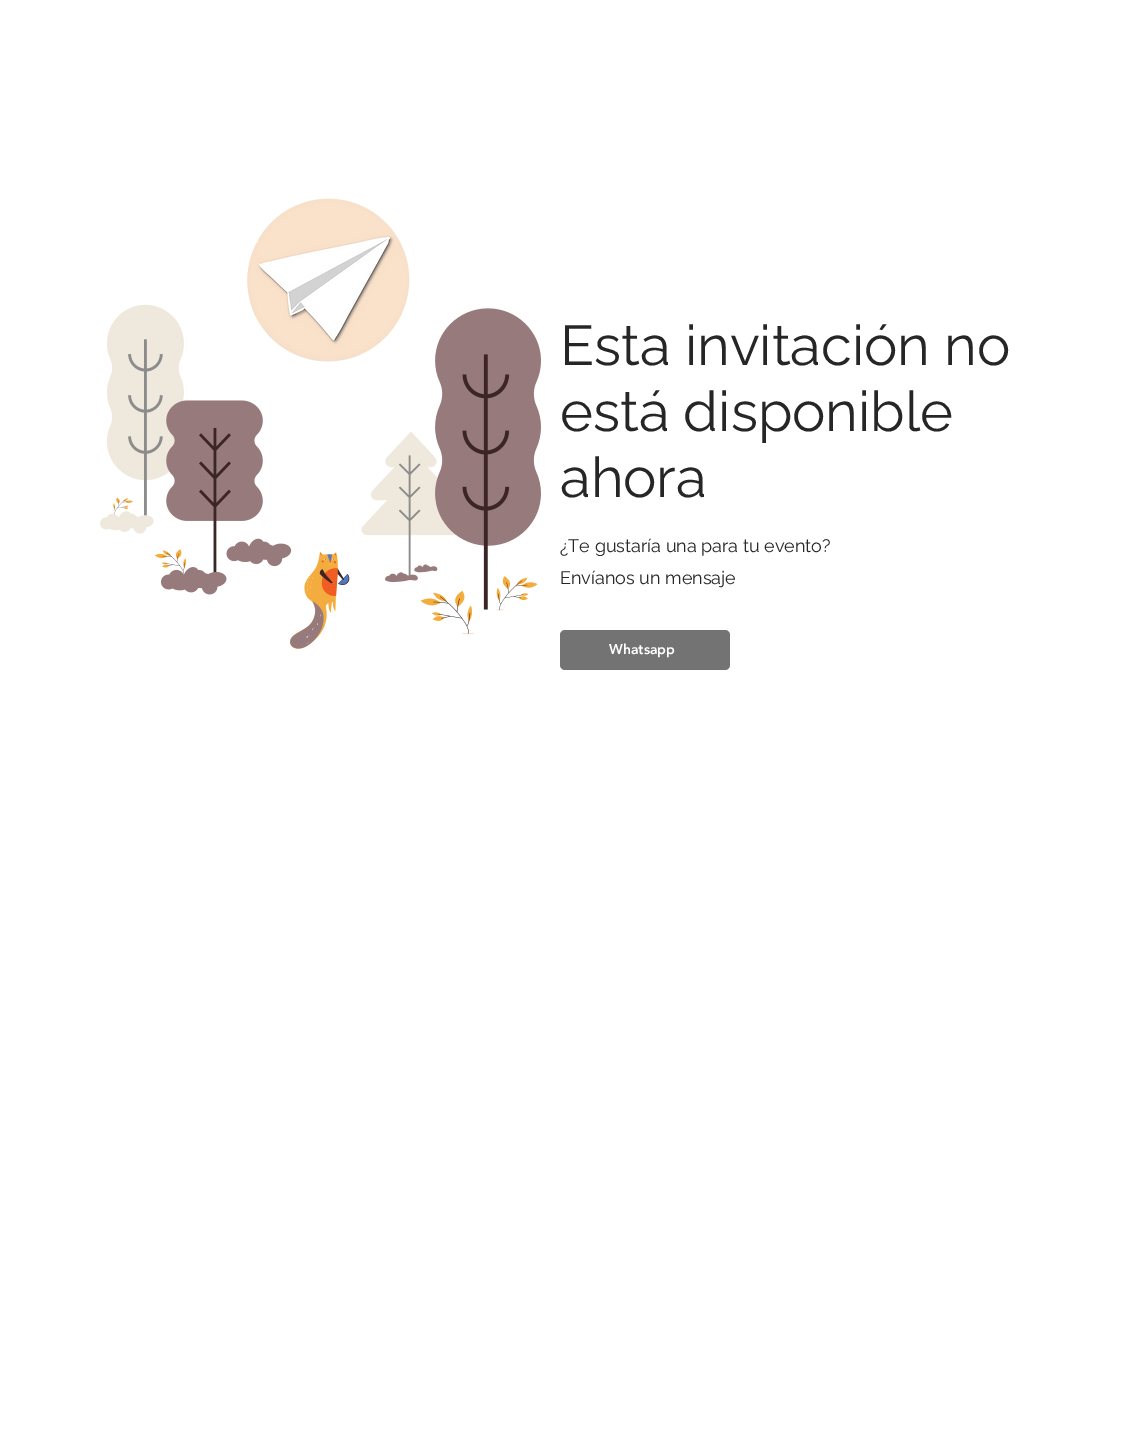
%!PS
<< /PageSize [1139 1431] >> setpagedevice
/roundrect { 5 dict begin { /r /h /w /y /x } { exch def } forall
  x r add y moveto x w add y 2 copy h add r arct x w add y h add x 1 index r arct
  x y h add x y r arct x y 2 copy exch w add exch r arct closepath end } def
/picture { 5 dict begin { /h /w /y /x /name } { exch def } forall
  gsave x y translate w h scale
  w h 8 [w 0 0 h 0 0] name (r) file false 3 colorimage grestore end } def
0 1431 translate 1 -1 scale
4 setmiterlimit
1 setgray
0 0 1139 1431 rectfill
(img2.rgb) 100 200 441 449 picture
(img1.rgb) 247 198 163 162 picture
/Raleway-Regular [56 0 0 -56 0 0] selectfont
0.149 setgray
560 365 moveto (Esta invitación no) show
560 431 moveto (está disponible) show
560 497 moveto (ahora) show
/Raleway-Regular [18 0 0 -18 0 0] selectfont
560 552 moveto (¿Te gustaría una para tu evento?) show
560 584 moveto (Envíanos un mensaje) show
0.451 setgray
560 630 170 40 5 roundrect fill
/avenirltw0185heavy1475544-Black [14 0 0 -14 0 0] selectfont
1 setgray
609 654 moveto (Whatsapp) show
showpage
